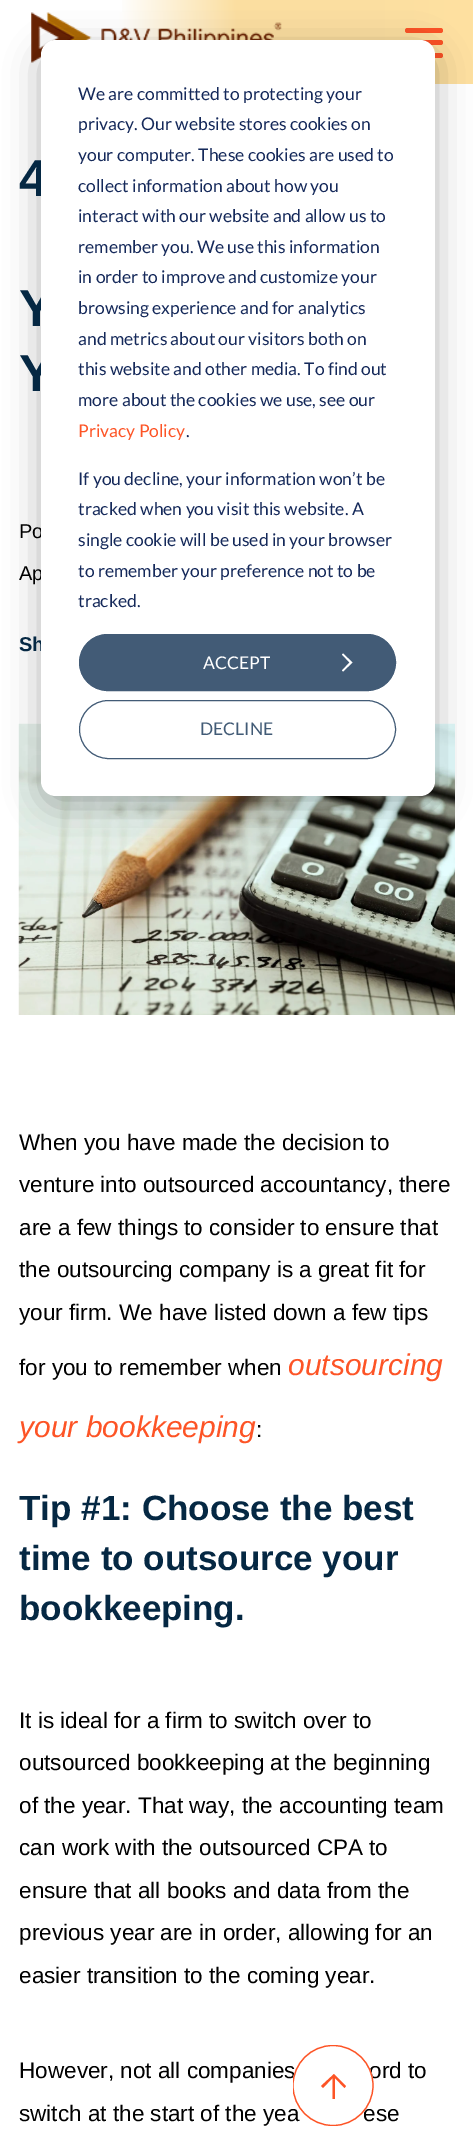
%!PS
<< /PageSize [473 2142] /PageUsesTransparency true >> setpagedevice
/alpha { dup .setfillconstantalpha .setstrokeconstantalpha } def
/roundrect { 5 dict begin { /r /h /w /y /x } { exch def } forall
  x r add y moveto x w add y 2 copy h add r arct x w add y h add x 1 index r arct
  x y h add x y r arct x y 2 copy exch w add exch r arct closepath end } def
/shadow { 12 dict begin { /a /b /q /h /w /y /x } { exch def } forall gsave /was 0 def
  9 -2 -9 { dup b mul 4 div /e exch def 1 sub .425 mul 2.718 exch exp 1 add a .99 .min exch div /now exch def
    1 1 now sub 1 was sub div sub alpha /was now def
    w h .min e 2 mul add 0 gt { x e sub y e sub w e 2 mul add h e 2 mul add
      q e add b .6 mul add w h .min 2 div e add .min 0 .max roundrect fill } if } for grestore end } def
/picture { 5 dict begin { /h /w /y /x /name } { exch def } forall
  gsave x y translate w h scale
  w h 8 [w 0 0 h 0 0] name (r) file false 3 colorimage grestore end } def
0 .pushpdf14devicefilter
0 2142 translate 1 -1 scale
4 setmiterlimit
1 setgray
0 0 473 2142 rectfill
gsave newpath 122 0 moveto 473 0 lineto 473 84 lineto 122 84 lineto closepath clip newpath
<< /ShadingType 2 /ColorSpace /DeviceRGB /Coords [0 42 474 42] /Extend [true true] /Function << /FunctionType 3 /Domain [0 1] /Functions [<< /FunctionType 2 /Domain [0 1] /C0 [1 1 1] /C1 [1 1 1] /N 1 >> << /FunctionType 2 /Domain [0 1] /C0 [1 1 1] /C1 [0.984 0.871 0.627] /N 1 >> << /FunctionType 2 /Domain [0 1] /C0 [0.984 0.871 0.627] /C1 [0.984 0.871 0.627] /N 1 >> << /FunctionType 2 /Domain [0 1] /C0 [0.984 0.871 0.627] /C1 [1 0.882 0.627] /N 1 >>] /Bounds [0.25 0.5 0.75] /Encode [0 1 0 1 0 1 0 1] >> >> shfill grestore
(img1.rgb) 31 12 251 51 picture
0.992 0.325 0.149 setrgbcolor
405 40 38 5 2.5 roundrect fill
405 28 38 5 2.5 roundrect fill
405 53 38 5 2.5 roundrect fill
(img2.rgb) 18 723 437 292 picture
0 setgray
41 50 394 756 15 17.5 0.28 shadow
/LiberationSans-Bold [52 0 0 -52 0 0] selectfont
0.02 0.157 0.263 setrgbcolor
19 196 moveto (4) show
19 326 moveto (Y) show
19 391 moveto (Y) show
/LiberationSans-Regular [20 0 0 -20 0 0] selectfont
0 setgray
19 538 moveto (Po) show
19 580 moveto (Ap) show
/LiberationSans-Bold [20 0 0 -20 0 0] selectfont
0.02 0.157 0.263 setrgbcolor
19 651 moveto (Sh) show
1 setgray
41 40 394 756 15 roundrect fill
/Lato-Regular [17.5 0 0 -17.5 0 0] selectfont
0.082 0.161 0.353 setrgbcolor
78 100 moveto (We are committed to protecting your) show
78 130 moveto (privacy. Our website stores cookies on) show
78 161 moveto (your computer. These cookies are used to) show
78 192 moveto (collect information about how you) show
78 222 moveto (interact with our website and allow us to) show
78 253 moveto (remember you. We use this information) show
78 283 moveto (in order to improve and customize your) show
78 314 moveto (browsing experience and for analytics) show
78 345 moveto (and metrics about our visitors both on) show
78 375 moveto (this website and other media. To find out) show
78 406 moveto (more about the cookies we use, see our) show
0.992 0.329 0.149 setrgbcolor
78 437 moveto (Privacy Policy) show
0.082 0.161 0.353 setrgbcolor
186 437 moveto (.) show
78 485 moveto (If you decline, your information won’t be) show
78 515 moveto (tracked when you visit this website. A) show
78 546 moveto (single cookie will be used in your browser) show
78 577 moveto (to remember your preference not to be) show
78 607 moveto (tracked.) show
0.259 0.357 0.463 setrgbcolor
79.5 634.5 316 56 28 roundrect gsave fill grestore
stroke
1 setgray
203 669 moveto (ACCEPT) show
newpath 343 671.5 moveto 342 670.5 lineto 349.5 662.5 lineto 342 654.5 lineto 343 653.5 lineto 352.5 662.5 lineto closepath fill
0.259 0.357 0.463 setrgbcolor
79.5 700.5 316 58 29 roundrect stroke
200 735 moveto (DECLINE) show
/LiberationSans-Regular [22.5 0 0 -22.5 0 0] selectfont
0 setgray
19 1150 moveto (When you have made the decision to) show
19 1192 moveto (venture into outsourced accountancy, there) show
19 1235 moveto (are a few things to consider to ensure that) show
19 1277 moveto (the outsourcing company is a great fit for) show
19 1320 moveto (your firm. We have listed down a few tips) show
19 1375 moveto (for you to remember when) show
/LiberationSans-Italic [30 0 0 -30 0 0] selectfont
0.992 0.329 0.149 setrgbcolor
288 1375 moveto (outsourcing) show
19 1437 moveto (your bookkeeping) show
/LiberationSans-Regular [22.5 0 0 -22.5 0 0] selectfont
0 setgray
256 1437 moveto (:) show
/LiberationSans-Bold [35 0 0 -35 0 0] selectfont
0.02 0.157 0.263 setrgbcolor
19 1520 moveto (Tip #1: Choose the best) show
19 1570 moveto (time to outsource your) show
19 1620 moveto (bookkeeping.) show
/LiberationSans-Regular [22.5 0 0 -22.5 0 0] selectfont
0 setgray
19 1728 moveto (It is ideal for a firm to switch over to) show
19 1770 moveto (outsourced bookkeeping at the beginning) show
19 1813 moveto (of the year. That way, the accounting team) show
19 1855 moveto (can work with the outsourced CPA to) show
19 1898 moveto (ensure that all books and data from the) show
19 1940 moveto (previous year are in order, allowing for an) show
19 1983 moveto (easier transition to the coming year.) show
19 2078 moveto (However, not all companies) show
369 2078 moveto (ord to) show
19 2121 moveto (switch at the start of the yea) show
363 2121 moveto (ese) show
gsave
293 2045 81 81 rectclip
1 setgray
newpath 333 2085.5 40.5 0 360 arc closepath fill
0.992 0.329 0.149 setrgbcolor
1.2 setlinewidth
newpath 333 2085.5 40 0 360 arc closepath stroke
grestore
0.992 0.329 0.149 setrgbcolor
newpath 346 2086 moveto 344.5 2088 lineto 335 2078 lineto 335 2099 lineto 332.5 2099 lineto 332.5 2078 lineto 323 2088 lineto 321 2086 lineto 334 2074 lineto closepath fill
.poppdf14devicefilter showpage
